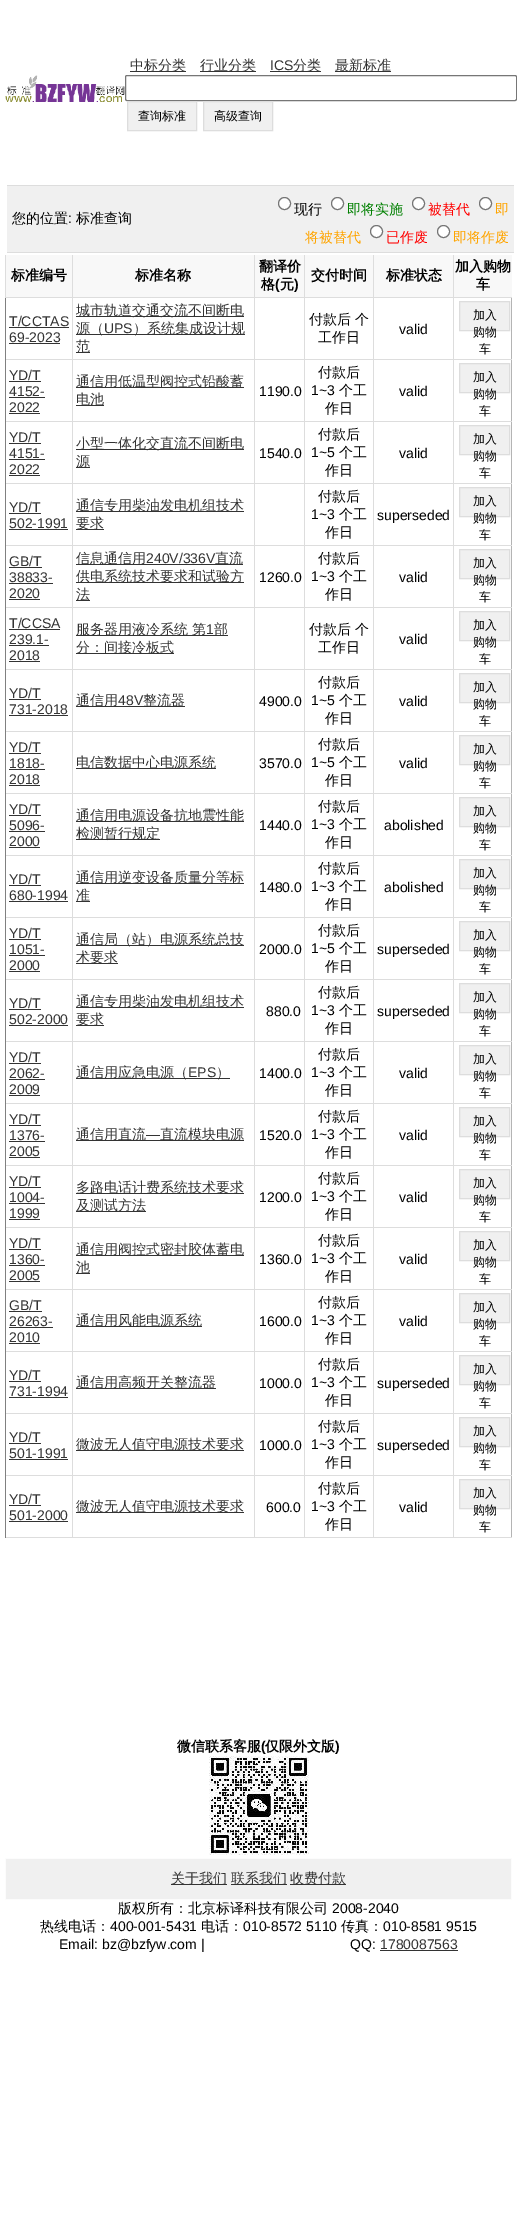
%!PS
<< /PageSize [517 2223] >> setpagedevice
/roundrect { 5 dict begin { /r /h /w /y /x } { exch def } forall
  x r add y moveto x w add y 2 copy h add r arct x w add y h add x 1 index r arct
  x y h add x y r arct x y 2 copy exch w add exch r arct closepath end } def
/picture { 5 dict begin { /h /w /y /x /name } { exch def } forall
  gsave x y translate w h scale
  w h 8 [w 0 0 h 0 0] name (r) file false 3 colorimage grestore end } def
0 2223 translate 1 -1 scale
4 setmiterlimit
1 setgray
0 0 517 2223 rectfill
(img1.rgb) 5 75 120 27 picture
0.2 setgray
130 71 56 1 rectfill
/WenQuanYiZenHei-Medium [14 0 0 -14 0 0] selectfont
130 70 moveto (中标分类) show
200 71 56 1 rectfill
200 70 moveto (行业分类) show
/LiberationSans-Regular [14 0 0 -14 0 0] selectfont
270 70 moveto (ICS) show
270 71 51 1 rectfill
/WenQuanYiZenHei-Medium [14 0 0 -14 0 0] selectfont
293 70 moveto (分类) show
335 71 56 1 rectfill
335 70 moveto (最新标准) show
0.463 setgray
125.5 75.5 391 25 1.5 roundrect stroke
0.941 setgray
newpath 127.5 101.5 moveto 196.5 101.5 lineto 196.5 130.5 lineto 127.5 130.5 lineto closepath gsave fill grestore
0.867 setgray
stroke
/WenQuanYiZenHei-Medium [12 0 0 -12 0 0] selectfont
0 setgray
138 120 moveto (查询标准) show
0.941 setgray
newpath 203.5 101.5 moveto 272.5 101.5 lineto 272.5 130.5 lineto 203.5 130.5 lineto closepath gsave fill grestore
0.867 setgray
stroke
0 setgray
214 120 moveto (高级查询) show
0.941 setgray
7 186 507 66 rectfill
0.867 setgray
7 185 507 1 rectfill
7 252 507 1 rectfill
/WenQuanYiZenHei-Medium [14 0 0 -14 0 0] selectfont
0 setgray
12 223 moveto (您的位置) show
/LiberationSans-Regular [14 0 0 -14 0 0] selectfont
68 223 moveto (:) show
/WenQuanYiZenHei-Medium [14 0 0 -14 0 0] selectfont
76 223 moveto (标准查询) show
1 setgray
newpath 284.5 203.5 6 0 360 arc closepath gsave fill grestore
0.463 setgray
stroke
0 setgray
294 214 moveto (现行) show
1 setgray
newpath 337.5 203.5 6 0 360 arc closepath gsave fill grestore
0.463 setgray
stroke
0 0.502 0 setrgbcolor
347 214 moveto (即将实施) show
1 setgray
newpath 418.5 203.5 6 0 360 arc closepath gsave fill grestore
0.463 setgray
stroke
1 0 0 setrgbcolor
428 214 moveto (被替代) show
1 setgray
newpath 485.5 203.5 6 0 360 arc closepath gsave fill grestore
0.463 setgray
stroke
1 0.647 0 setrgbcolor
495 214 moveto (即) show
305 242 moveto (将被替代) show
1 setgray
newpath 376.5 231.5 6 0 360 arc closepath gsave fill grestore
0.463 setgray
stroke
1 0 0 setrgbcolor
386 242 moveto (已作废) show
1 setgray
newpath 443.5 231.5 6 0 360 arc closepath gsave fill grestore
0.463 setgray
stroke
1 0.647 0 setrgbcolor
453 242 moveto (即将作废) show
0.973 setgray
6 255 66 42 rectfill
0.706 setgray
511 483 1 1055 rectfill
511 297 1 187 rectfill
0.867 setgray
453 1537 59 1 rectfill
453 1475 1 63 rectfill
453 1475 59 1 rectfill
453 1413 1 63 rectfill
453 1413 59 1 rectfill
453 1351 1 63 rectfill
453 1351 59 1 rectfill
453 1289 1 63 rectfill
453 1289 59 1 rectfill
453 1227 1 63 rectfill
453 1227 59 1 rectfill
453 1165 1 63 rectfill
453 1165 59 1 rectfill
453 1103 1 63 rectfill
453 1103 59 1 rectfill
453 1041 1 63 rectfill
453 1041 59 1 rectfill
453 979 1 63 rectfill
453 979 59 1 rectfill
453 917 1 63 rectfill
453 917 59 1 rectfill
453 855 1 63 rectfill
453 855 59 1 rectfill
453 793 1 63 rectfill
453 793 59 1 rectfill
453 731 1 63 rectfill
453 731 59 1 rectfill
453 669 1 63 rectfill
453 669 59 1 rectfill
453 607 1 63 rectfill
453 607 59 1 rectfill
453 545 1 63 rectfill
453 545 59 1 rectfill
453 483 1 63 rectfill
453 483 59 1 rectfill
453 421 1 63 rectfill
453 421 59 1 rectfill
453 359 1 63 rectfill
453 359 59 1 rectfill
453 297 1 63 rectfill
453 297 59 1 rectfill
453 255 1 43 rectfill
373 1537 81 1 rectfill
373 1475 1 63 rectfill
373 1475 81 1 rectfill
373 1413 1 63 rectfill
373 1413 81 1 rectfill
373 1351 1 63 rectfill
373 1351 81 1 rectfill
373 1289 1 63 rectfill
373 1289 81 1 rectfill
373 1227 1 63 rectfill
373 1227 81 1 rectfill
373 1165 1 63 rectfill
373 1165 81 1 rectfill
373 1103 1 63 rectfill
373 1103 81 1 rectfill
373 1041 1 63 rectfill
373 1041 81 1 rectfill
373 979 1 63 rectfill
373 979 81 1 rectfill
373 917 1 63 rectfill
373 917 81 1 rectfill
373 855 1 63 rectfill
373 855 81 1 rectfill
373 793 1 63 rectfill
373 793 81 1 rectfill
373 731 1 63 rectfill
373 731 81 1 rectfill
373 669 1 63 rectfill
373 669 81 1 rectfill
373 607 1 63 rectfill
373 607 81 1 rectfill
373 545 1 63 rectfill
373 545 81 1 rectfill
373 483 1 63 rectfill
373 483 81 1 rectfill
373 421 1 63 rectfill
373 421 81 1 rectfill
373 359 1 63 rectfill
373 359 81 1 rectfill
373 297 1 63 rectfill
373 297 81 1 rectfill
373 255 1 43 rectfill
304 1537 70 1 rectfill
304 1475 1 63 rectfill
304 1475 70 1 rectfill
304 1413 1 63 rectfill
304 1413 70 1 rectfill
304 1351 1 63 rectfill
304 1351 70 1 rectfill
304 1289 1 63 rectfill
304 1289 70 1 rectfill
304 1227 1 63 rectfill
304 1227 70 1 rectfill
304 1165 1 63 rectfill
304 1165 70 1 rectfill
304 1103 1 63 rectfill
304 1103 70 1 rectfill
304 1041 1 63 rectfill
304 1041 70 1 rectfill
304 979 1 63 rectfill
304 979 70 1 rectfill
304 917 1 63 rectfill
304 917 70 1 rectfill
304 855 1 63 rectfill
304 855 70 1 rectfill
304 793 1 63 rectfill
304 793 70 1 rectfill
304 731 1 63 rectfill
304 731 70 1 rectfill
304 669 1 63 rectfill
304 669 70 1 rectfill
304 607 1 63 rectfill
304 607 70 1 rectfill
304 545 1 63 rectfill
304 545 70 1 rectfill
304 483 1 63 rectfill
304 483 70 1 rectfill
304 421 1 63 rectfill
304 421 70 1 rectfill
304 359 1 63 rectfill
304 359 70 1 rectfill
304 297 1 63 rectfill
304 297 70 1 rectfill
304 255 1 43 rectfill
254 1537 51 1 rectfill
254 1475 1 63 rectfill
254 1475 51 1 rectfill
254 1413 1 63 rectfill
254 1413 51 1 rectfill
254 1351 1 63 rectfill
254 1351 51 1 rectfill
254 1289 1 63 rectfill
254 1289 51 1 rectfill
254 1227 1 63 rectfill
254 1227 51 1 rectfill
254 1165 1 63 rectfill
254 1165 51 1 rectfill
254 1103 1 63 rectfill
254 1103 51 1 rectfill
254 1041 1 63 rectfill
254 1041 51 1 rectfill
254 979 1 63 rectfill
254 979 51 1 rectfill
254 917 1 63 rectfill
254 917 51 1 rectfill
254 855 1 63 rectfill
254 855 51 1 rectfill
254 793 1 63 rectfill
254 793 51 1 rectfill
254 731 1 63 rectfill
254 731 51 1 rectfill
254 669 1 63 rectfill
254 669 51 1 rectfill
254 607 1 63 rectfill
254 607 51 1 rectfill
254 545 1 63 rectfill
254 545 51 1 rectfill
254 483 1 63 rectfill
254 483 51 1 rectfill
254 421 1 63 rectfill
254 421 51 1 rectfill
254 359 1 63 rectfill
254 359 51 1 rectfill
254 297 1 63 rectfill
254 297 51 1 rectfill
254 255 1 43 rectfill
72 1537 183 1 rectfill
72 1475 1 63 rectfill
72 1475 183 1 rectfill
72 1413 1 63 rectfill
72 1413 183 1 rectfill
72 1351 1 63 rectfill
72 1351 183 1 rectfill
72 1289 1 63 rectfill
72 1289 183 1 rectfill
72 1227 1 63 rectfill
72 1227 183 1 rectfill
72 1165 1 63 rectfill
72 1165 183 1 rectfill
72 1103 1 63 rectfill
72 1103 183 1 rectfill
72 1041 1 63 rectfill
72 1041 183 1 rectfill
72 979 1 63 rectfill
72 979 183 1 rectfill
72 917 1 63 rectfill
72 917 183 1 rectfill
72 855 1 63 rectfill
72 855 183 1 rectfill
72 793 1 63 rectfill
72 793 183 1 rectfill
72 731 1 63 rectfill
72 731 183 1 rectfill
72 669 1 63 rectfill
72 669 183 1 rectfill
72 607 1 63 rectfill
72 607 183 1 rectfill
72 545 1 63 rectfill
72 545 183 1 rectfill
72 483 1 63 rectfill
72 483 183 1 rectfill
72 421 1 63 rectfill
72 421 183 1 rectfill
72 359 1 63 rectfill
72 359 183 1 rectfill
72 297 1 63 rectfill
72 297 183 1 rectfill
72 255 1 43 rectfill
5 1537 68 1 rectfill
0.502 setgray
5 1475 1 63 rectfill
0.867 setgray
5 1475 68 1 rectfill
0.502 setgray
5 1413 1 63 rectfill
0.867 setgray
5 1413 68 1 rectfill
0.502 setgray
5 1351 1 63 rectfill
0.867 setgray
5 1351 68 1 rectfill
0.502 setgray
5 1289 1 63 rectfill
0.867 setgray
5 1289 68 1 rectfill
0.502 setgray
5 1227 1 63 rectfill
0.867 setgray
5 1227 68 1 rectfill
0.502 setgray
5 1165 1 63 rectfill
0.867 setgray
5 1165 68 1 rectfill
0.502 setgray
5 1103 1 63 rectfill
0.867 setgray
5 1103 68 1 rectfill
0.502 setgray
5 1041 1 63 rectfill
0.867 setgray
5 1041 68 1 rectfill
0.502 setgray
5 979 1 63 rectfill
0.867 setgray
5 979 68 1 rectfill
0.502 setgray
5 917 1 63 rectfill
0.867 setgray
5 917 68 1 rectfill
0.502 setgray
5 855 1 63 rectfill
0.867 setgray
5 855 68 1 rectfill
0.502 setgray
5 793 1 63 rectfill
0.867 setgray
5 793 68 1 rectfill
0.502 setgray
5 731 1 63 rectfill
0.867 setgray
5 731 68 1 rectfill
0.502 setgray
5 669 1 63 rectfill
0.867 setgray
5 669 68 1 rectfill
0.502 setgray
5 607 1 63 rectfill
0.867 setgray
5 607 68 1 rectfill
0.502 setgray
5 545 1 63 rectfill
0.867 setgray
5 545 68 1 rectfill
0.502 setgray
5 483 1 63 rectfill
0.867 setgray
5 483 68 1 rectfill
0.502 setgray
5 421 1 63 rectfill
0.867 setgray
5 421 68 1 rectfill
0.502 setgray
5 359 1 63 rectfill
0.867 setgray
5 359 68 1 rectfill
0.502 setgray
5 297 1 63 rectfill
0.867 setgray
5 297 68 1 rectfill
5 255 1 43 rectfill
/WenQuanYiZenHei-Bold [14 0 0 -14 0 0] selectfont
0 setgray
11 280 moveto (标准编号) show
0.973 setgray
73 255 181 42 rectfill
0 setgray
135 280 moveto (标准名称) show
0.973 setgray
255 255 49 42 rectfill
0 setgray
259 271 moveto (翻译价) show
261 289 moveto (格) show
/LiberationSans-Bold [14 0 0 -14 0 0] selectfont
275 289 moveto (\() show
/WenQuanYiZenHei-Bold [14 0 0 -14 0 0] selectfont
280 289 moveto (元) show
/LiberationSans-Bold [14 0 0 -14 0 0] selectfont
294 289 moveto (\)) show
0.973 setgray
305 255 68 42 rectfill
/WenQuanYiZenHei-Bold [14 0 0 -14 0 0] selectfont
0 setgray
311 280 moveto (交付时间) show
0.973 setgray
374 255 79 42 rectfill
0 setgray
386 280 moveto (标准状态) show
0.973 setgray
454 255 58 42 rectfill
0 setgray
455 271 moveto (加入购物) show
476 289 moveto (车) show
/LiberationSans-Regular [14 0 0 -14 0 0] selectfont
0.2 setgray
9 326 moveto (T/CCTAS) show
9 327 60 1 rectfill
9 342 moveto (69-2023) show
9 343 51 1 rectfill
76 316 168 1 rectfill
/WenQuanYiZenHei-Medium [14 0 0 -14 0 0] selectfont
76 315 moveto (城市轨道交通交流不间断电) show
76 334 169 1 rectfill
76 333 moveto (源（) show
/LiberationSans-Regular [14 0 0 -14 0 0] selectfont
104 333 moveto (UPS) show
/WenQuanYiZenHei-Medium [14 0 0 -14 0 0] selectfont
133 333 moveto (）系统集成设计规) show
76 352 14 1 rectfill
76 351 moveto (范) show
0 setgray
309 324 moveto (付款后) show
355 324 moveto (个) show
318 342 moveto (工作日) show
/LiberationSans-Regular [14 0 0 -14 0 0] selectfont
399 334 moveto (valid) show
0.941 setgray
newpath 459.5 301.5 moveto 509.5 301.5 lineto 509.5 330.5 lineto 459.5 330.5 lineto closepath gsave fill grestore
0.867 setgray
stroke
/WenQuanYiZenHei-Medium [12 0 0 -12 0 0] selectfont
0 setgray
473 319 moveto (加入) show
473 336 moveto (购物) show
479 353 moveto (车) show
/LiberationSans-Regular [14 0 0 -14 0 0] selectfont
0.2 setgray
9 380 moveto (YD/T) show
9 381 32 1 rectfill
9 396 moveto (4152-) show
9 397 36 1 rectfill
9 412 moveto (2022) show
9 413 31 1 rectfill
76 387 168 1 rectfill
/WenQuanYiZenHei-Medium [14 0 0 -14 0 0] selectfont
76 386 moveto (通信用低温型阀控式铅酸蓄) show
76 405 28 1 rectfill
76 404 moveto (电池) show
/LiberationSans-Regular [14 0 0 -14 0 0] selectfont
0 setgray
259 396 moveto (1190.0) show
/WenQuanYiZenHei-Medium [14 0 0 -14 0 0] selectfont
318 377 moveto (付款后) show
/LiberationSans-Regular [14 0 0 -14 0 0] selectfont
311 395 moveto (1~3) show
/WenQuanYiZenHei-Medium [14 0 0 -14 0 0] selectfont
339 395 moveto (个工) show
325 413 moveto (作日) show
/LiberationSans-Regular [14 0 0 -14 0 0] selectfont
399 396 moveto (valid) show
0.941 setgray
newpath 459.5 363.5 moveto 509.5 363.5 lineto 509.5 392.5 lineto 459.5 392.5 lineto closepath gsave fill grestore
0.867 setgray
stroke
/WenQuanYiZenHei-Medium [12 0 0 -12 0 0] selectfont
0 setgray
473 381 moveto (加入) show
473 398 moveto (购物) show
479 415 moveto (车) show
/LiberationSans-Regular [14 0 0 -14 0 0] selectfont
0.2 setgray
9 442 moveto (YD/T) show
9 443 32 1 rectfill
9 458 moveto (4151-) show
9 459 36 1 rectfill
9 474 moveto (2022) show
9 475 31 1 rectfill
76 449 168 1 rectfill
/WenQuanYiZenHei-Medium [14 0 0 -14 0 0] selectfont
76 448 moveto (小型一体化交直流不间断电) show
76 467 14 1 rectfill
76 466 moveto (源) show
/LiberationSans-Regular [14 0 0 -14 0 0] selectfont
0 setgray
259 458 moveto (1540.0) show
/WenQuanYiZenHei-Medium [14 0 0 -14 0 0] selectfont
318 439 moveto (付款后) show
/LiberationSans-Regular [14 0 0 -14 0 0] selectfont
311 457 moveto (1~5) show
/WenQuanYiZenHei-Medium [14 0 0 -14 0 0] selectfont
339 457 moveto (个工) show
325 475 moveto (作日) show
/LiberationSans-Regular [14 0 0 -14 0 0] selectfont
399 458 moveto (valid) show
0.941 setgray
newpath 459.5 425.5 moveto 509.5 425.5 lineto 509.5 454.5 lineto 459.5 454.5 lineto closepath gsave fill grestore
0.867 setgray
stroke
/WenQuanYiZenHei-Medium [12 0 0 -12 0 0] selectfont
0 setgray
473 443 moveto (加入) show
473 460 moveto (购物) show
479 477 moveto (车) show
/LiberationSans-Regular [14 0 0 -14 0 0] selectfont
0.2 setgray
9 512 moveto (YD/T) show
9 513 32 1 rectfill
9 528 moveto (502-1991) show
9 529 59 1 rectfill
76 511 168 1 rectfill
/WenQuanYiZenHei-Medium [14 0 0 -14 0 0] selectfont
76 510 moveto (通信专用柴油发电机组技术) show
76 529 28 1 rectfill
76 528 moveto (要求) show
0 setgray
318 501 moveto (付款后) show
/LiberationSans-Regular [14 0 0 -14 0 0] selectfont
311 519 moveto (1~3) show
/WenQuanYiZenHei-Medium [14 0 0 -14 0 0] selectfont
339 519 moveto (个工) show
325 537 moveto (作日) show
/LiberationSans-Regular [14 0 0 -14 0 0] selectfont
377 520 moveto (superseded) show
0.941 setgray
newpath 459.5 487.5 moveto 509.5 487.5 lineto 509.5 516.5 lineto 459.5 516.5 lineto closepath gsave fill grestore
0.867 setgray
stroke
/WenQuanYiZenHei-Medium [12 0 0 -12 0 0] selectfont
0 setgray
473 505 moveto (加入) show
473 522 moveto (购物) show
479 539 moveto (车) show
/LiberationSans-Regular [14 0 0 -14 0 0] selectfont
0.2 setgray
9 566 moveto (GB/T) show
9 567 33 1 rectfill
9 582 moveto (38833-) show
9 583 44 1 rectfill
9 598 moveto (2020) show
9 599 31 1 rectfill
76 564 167 1 rectfill
/WenQuanYiZenHei-Medium [14 0 0 -14 0 0] selectfont
76 563 moveto (信息通信用) show
/LiberationSans-Regular [14 0 0 -14 0 0] selectfont
146 563 moveto (240V/336V) show
/WenQuanYiZenHei-Medium [14 0 0 -14 0 0] selectfont
215 563 moveto (直流) show
76 582 168 1 rectfill
76 581 moveto (供电系统技术要求和试验方) show
76 600 14 1 rectfill
76 599 moveto (法) show
/LiberationSans-Regular [14 0 0 -14 0 0] selectfont
0 setgray
259 582 moveto (1260.0) show
/WenQuanYiZenHei-Medium [14 0 0 -14 0 0] selectfont
318 563 moveto (付款后) show
/LiberationSans-Regular [14 0 0 -14 0 0] selectfont
311 581 moveto (1~3) show
/WenQuanYiZenHei-Medium [14 0 0 -14 0 0] selectfont
339 581 moveto (个工) show
325 599 moveto (作日) show
/LiberationSans-Regular [14 0 0 -14 0 0] selectfont
399 582 moveto (valid) show
0.941 setgray
newpath 459.5 549.5 moveto 509.5 549.5 lineto 509.5 578.5 lineto 459.5 578.5 lineto closepath gsave fill grestore
0.867 setgray
stroke
/WenQuanYiZenHei-Medium [12 0 0 -12 0 0] selectfont
0 setgray
473 567 moveto (加入) show
473 584 moveto (购物) show
479 601 moveto (车) show
/LiberationSans-Regular [14 0 0 -14 0 0] selectfont
0.2 setgray
9 628 moveto (T/CCSA) show
9 629 51 1 rectfill
9 644 moveto (239.1-) show
9 645 40 1 rectfill
9 660 moveto (2018) show
9 661 31 1 rectfill
76 635 152 1 rectfill
/WenQuanYiZenHei-Medium [14 0 0 -14 0 0] selectfont
76 634 moveto (服务器用液冷系统 第) show
/LiberationSans-Regular [14 0 0 -14 0 0] selectfont
206 634 moveto (1) show
/WenQuanYiZenHei-Medium [14 0 0 -14 0 0] selectfont
214 634 moveto (部) show
76 653 98 1 rectfill
76 652 moveto (分：间接冷板式) show
0 setgray
309 634 moveto (付款后) show
355 634 moveto (个) show
318 652 moveto (工作日) show
/LiberationSans-Regular [14 0 0 -14 0 0] selectfont
399 644 moveto (valid) show
0.941 setgray
newpath 459.5 611.5 moveto 509.5 611.5 lineto 509.5 640.5 lineto 459.5 640.5 lineto closepath gsave fill grestore
0.867 setgray
stroke
/WenQuanYiZenHei-Medium [12 0 0 -12 0 0] selectfont
0 setgray
473 629 moveto (加入) show
473 646 moveto (购物) show
479 663 moveto (车) show
/LiberationSans-Regular [14 0 0 -14 0 0] selectfont
0.2 setgray
9 698 moveto (YD/T) show
9 699 32 1 rectfill
9 714 moveto (731-2018) show
9 715 59 1 rectfill
76 706 109 1 rectfill
/WenQuanYiZenHei-Medium [14 0 0 -14 0 0] selectfont
76 705 moveto (通信用) show
/LiberationSans-Regular [14 0 0 -14 0 0] selectfont
118 705 moveto (48V) show
/WenQuanYiZenHei-Medium [14 0 0 -14 0 0] selectfont
143 705 moveto (整流器) show
/LiberationSans-Regular [14 0 0 -14 0 0] selectfont
0 setgray
259 706 moveto (4900.0) show
/WenQuanYiZenHei-Medium [14 0 0 -14 0 0] selectfont
318 687 moveto (付款后) show
/LiberationSans-Regular [14 0 0 -14 0 0] selectfont
311 705 moveto (1~5) show
/WenQuanYiZenHei-Medium [14 0 0 -14 0 0] selectfont
339 705 moveto (个工) show
325 723 moveto (作日) show
/LiberationSans-Regular [14 0 0 -14 0 0] selectfont
399 706 moveto (valid) show
0.941 setgray
newpath 459.5 673.5 moveto 509.5 673.5 lineto 509.5 702.5 lineto 459.5 702.5 lineto closepath gsave fill grestore
0.867 setgray
stroke
/WenQuanYiZenHei-Medium [12 0 0 -12 0 0] selectfont
0 setgray
473 691 moveto (加入) show
473 708 moveto (购物) show
479 725 moveto (车) show
/LiberationSans-Regular [14 0 0 -14 0 0] selectfont
0.2 setgray
9 752 moveto (YD/T) show
9 753 32 1 rectfill
9 768 moveto (1818-) show
9 769 36 1 rectfill
9 784 moveto (2018) show
9 785 31 1 rectfill
76 768 140 1 rectfill
/WenQuanYiZenHei-Medium [14 0 0 -14 0 0] selectfont
76 767 moveto (电信数据中心电源系统) show
/LiberationSans-Regular [14 0 0 -14 0 0] selectfont
0 setgray
259 768 moveto (3570.0) show
/WenQuanYiZenHei-Medium [14 0 0 -14 0 0] selectfont
318 749 moveto (付款后) show
/LiberationSans-Regular [14 0 0 -14 0 0] selectfont
311 767 moveto (1~5) show
/WenQuanYiZenHei-Medium [14 0 0 -14 0 0] selectfont
339 767 moveto (个工) show
325 785 moveto (作日) show
/LiberationSans-Regular [14 0 0 -14 0 0] selectfont
399 768 moveto (valid) show
0.941 setgray
newpath 459.5 735.5 moveto 509.5 735.5 lineto 509.5 764.5 lineto 459.5 764.5 lineto closepath gsave fill grestore
0.867 setgray
stroke
/WenQuanYiZenHei-Medium [12 0 0 -12 0 0] selectfont
0 setgray
473 753 moveto (加入) show
473 770 moveto (购物) show
479 787 moveto (车) show
/LiberationSans-Regular [14 0 0 -14 0 0] selectfont
0.2 setgray
9 814 moveto (YD/T) show
9 815 32 1 rectfill
9 830 moveto (5096-) show
9 831 36 1 rectfill
9 846 moveto (2000) show
9 847 31 1 rectfill
76 821 168 1 rectfill
/WenQuanYiZenHei-Medium [14 0 0 -14 0 0] selectfont
76 820 moveto (通信用电源设备抗地震性能) show
76 839 84 1 rectfill
76 838 moveto (检测暂行规定) show
/LiberationSans-Regular [14 0 0 -14 0 0] selectfont
0 setgray
259 830 moveto (1440.0) show
/WenQuanYiZenHei-Medium [14 0 0 -14 0 0] selectfont
318 811 moveto (付款后) show
/LiberationSans-Regular [14 0 0 -14 0 0] selectfont
311 829 moveto (1~3) show
/WenQuanYiZenHei-Medium [14 0 0 -14 0 0] selectfont
339 829 moveto (个工) show
325 847 moveto (作日) show
/LiberationSans-Regular [14 0 0 -14 0 0] selectfont
384 830 moveto (abolished) show
0.941 setgray
newpath 459.5 797.5 moveto 509.5 797.5 lineto 509.5 826.5 lineto 459.5 826.5 lineto closepath gsave fill grestore
0.867 setgray
stroke
/WenQuanYiZenHei-Medium [12 0 0 -12 0 0] selectfont
0 setgray
473 815 moveto (加入) show
473 832 moveto (购物) show
479 849 moveto (车) show
/LiberationSans-Regular [14 0 0 -14 0 0] selectfont
0.2 setgray
9 884 moveto (YD/T) show
9 885 32 1 rectfill
9 900 moveto (680-1994) show
9 901 59 1 rectfill
76 883 168 1 rectfill
/WenQuanYiZenHei-Medium [14 0 0 -14 0 0] selectfont
76 882 moveto (通信用逆变设备质量分等标) show
76 901 14 1 rectfill
76 900 moveto (准) show
/LiberationSans-Regular [14 0 0 -14 0 0] selectfont
0 setgray
259 892 moveto (1480.0) show
/WenQuanYiZenHei-Medium [14 0 0 -14 0 0] selectfont
318 873 moveto (付款后) show
/LiberationSans-Regular [14 0 0 -14 0 0] selectfont
311 891 moveto (1~3) show
/WenQuanYiZenHei-Medium [14 0 0 -14 0 0] selectfont
339 891 moveto (个工) show
325 909 moveto (作日) show
/LiberationSans-Regular [14 0 0 -14 0 0] selectfont
384 892 moveto (abolished) show
0.941 setgray
newpath 459.5 859.5 moveto 509.5 859.5 lineto 509.5 888.5 lineto 459.5 888.5 lineto closepath gsave fill grestore
0.867 setgray
stroke
/WenQuanYiZenHei-Medium [12 0 0 -12 0 0] selectfont
0 setgray
473 877 moveto (加入) show
473 894 moveto (购物) show
479 911 moveto (车) show
/LiberationSans-Regular [14 0 0 -14 0 0] selectfont
0.2 setgray
9 938 moveto (YD/T) show
9 939 32 1 rectfill
9 954 moveto (1051-) show
9 955 36 1 rectfill
9 970 moveto (2000) show
9 971 31 1 rectfill
76 945 168 1 rectfill
/WenQuanYiZenHei-Medium [14 0 0 -14 0 0] selectfont
76 944 moveto (通信局（站）电源系统总技) show
76 963 42 1 rectfill
76 962 moveto (术要求) show
/LiberationSans-Regular [14 0 0 -14 0 0] selectfont
0 setgray
259 954 moveto (2000.0) show
/WenQuanYiZenHei-Medium [14 0 0 -14 0 0] selectfont
318 935 moveto (付款后) show
/LiberationSans-Regular [14 0 0 -14 0 0] selectfont
311 953 moveto (1~5) show
/WenQuanYiZenHei-Medium [14 0 0 -14 0 0] selectfont
339 953 moveto (个工) show
325 971 moveto (作日) show
/LiberationSans-Regular [14 0 0 -14 0 0] selectfont
377 954 moveto (superseded) show
0.941 setgray
newpath 459.5 921.5 moveto 509.5 921.5 lineto 509.5 950.5 lineto 459.5 950.5 lineto closepath gsave fill grestore
0.867 setgray
stroke
/WenQuanYiZenHei-Medium [12 0 0 -12 0 0] selectfont
0 setgray
473 939 moveto (加入) show
473 956 moveto (购物) show
479 973 moveto (车) show
/LiberationSans-Regular [14 0 0 -14 0 0] selectfont
0.2 setgray
9 1008 moveto (YD/T) show
9 1009 32 1 rectfill
9 1024 moveto (502-2000) show
9 1025 59 1 rectfill
76 1007 168 1 rectfill
/WenQuanYiZenHei-Medium [14 0 0 -14 0 0] selectfont
76 1006 moveto (通信专用柴油发电机组技术) show
76 1025 28 1 rectfill
76 1024 moveto (要求) show
/LiberationSans-Regular [14 0 0 -14 0 0] selectfont
0 setgray
266 1016 moveto (880.0) show
/WenQuanYiZenHei-Medium [14 0 0 -14 0 0] selectfont
318 997 moveto (付款后) show
/LiberationSans-Regular [14 0 0 -14 0 0] selectfont
311 1015 moveto (1~3) show
/WenQuanYiZenHei-Medium [14 0 0 -14 0 0] selectfont
339 1015 moveto (个工) show
325 1033 moveto (作日) show
/LiberationSans-Regular [14 0 0 -14 0 0] selectfont
377 1016 moveto (superseded) show
0.941 setgray
newpath 459.5 983.5 moveto 509.5 983.5 lineto 509.5 1012.5 lineto 459.5 1012.5 lineto closepath gsave fill grestore
0.867 setgray
stroke
/WenQuanYiZenHei-Medium [12 0 0 -12 0 0] selectfont
0 setgray
473 1001 moveto (加入) show
473 1018 moveto (购物) show
479 1035 moveto (车) show
/LiberationSans-Regular [14 0 0 -14 0 0] selectfont
0.2 setgray
9 1062 moveto (YD/T) show
9 1063 32 1 rectfill
9 1078 moveto (2062-) show
9 1079 36 1 rectfill
9 1094 moveto (2009) show
9 1095 31 1 rectfill
76 1078 154 1 rectfill
/WenQuanYiZenHei-Medium [14 0 0 -14 0 0] selectfont
76 1077 moveto (通信用应急电源（) show
/LiberationSans-Regular [14 0 0 -14 0 0] selectfont
188 1077 moveto (EPS) show
/WenQuanYiZenHei-Medium [14 0 0 -14 0 0] selectfont
216 1077 moveto (）) show
/LiberationSans-Regular [14 0 0 -14 0 0] selectfont
0 setgray
259 1078 moveto (1400.0) show
/WenQuanYiZenHei-Medium [14 0 0 -14 0 0] selectfont
318 1059 moveto (付款后) show
/LiberationSans-Regular [14 0 0 -14 0 0] selectfont
311 1077 moveto (1~3) show
/WenQuanYiZenHei-Medium [14 0 0 -14 0 0] selectfont
339 1077 moveto (个工) show
325 1095 moveto (作日) show
/LiberationSans-Regular [14 0 0 -14 0 0] selectfont
399 1078 moveto (valid) show
0.941 setgray
newpath 459.5 1045.5 moveto 509.5 1045.5 lineto 509.5 1074.5 lineto 459.5 1074.5 lineto closepath gsave fill grestore
0.867 setgray
stroke
/WenQuanYiZenHei-Medium [12 0 0 -12 0 0] selectfont
0 setgray
473 1063 moveto (加入) show
473 1080 moveto (购物) show
479 1097 moveto (车) show
/LiberationSans-Regular [14 0 0 -14 0 0] selectfont
0.2 setgray
9 1124 moveto (YD/T) show
9 1125 32 1 rectfill
9 1140 moveto (1376-) show
9 1141 36 1 rectfill
9 1156 moveto (2005) show
9 1157 31 1 rectfill
76 1140 168 1 rectfill
/WenQuanYiZenHei-Medium [14 0 0 -14 0 0] selectfont
76 1139 moveto (通信用直流) show
/LiberationSans-Regular [14 0 0 -14 0 0] selectfont
146 1139 moveto (—) show
/WenQuanYiZenHei-Medium [14 0 0 -14 0 0] selectfont
160 1139 moveto (直流模块电源) show
/LiberationSans-Regular [14 0 0 -14 0 0] selectfont
0 setgray
259 1140 moveto (1520.0) show
/WenQuanYiZenHei-Medium [14 0 0 -14 0 0] selectfont
318 1121 moveto (付款后) show
/LiberationSans-Regular [14 0 0 -14 0 0] selectfont
311 1139 moveto (1~3) show
/WenQuanYiZenHei-Medium [14 0 0 -14 0 0] selectfont
339 1139 moveto (个工) show
325 1157 moveto (作日) show
/LiberationSans-Regular [14 0 0 -14 0 0] selectfont
399 1140 moveto (valid) show
0.941 setgray
newpath 459.5 1107.5 moveto 509.5 1107.5 lineto 509.5 1136.5 lineto 459.5 1136.5 lineto closepath gsave fill grestore
0.867 setgray
stroke
/WenQuanYiZenHei-Medium [12 0 0 -12 0 0] selectfont
0 setgray
473 1125 moveto (加入) show
473 1142 moveto (购物) show
479 1159 moveto (车) show
/LiberationSans-Regular [14 0 0 -14 0 0] selectfont
0.2 setgray
9 1186 moveto (YD/T) show
9 1187 32 1 rectfill
9 1202 moveto (1004-) show
9 1203 36 1 rectfill
9 1218 moveto (1999) show
9 1219 31 1 rectfill
76 1193 168 1 rectfill
/WenQuanYiZenHei-Medium [14 0 0 -14 0 0] selectfont
76 1192 moveto (多路电话计费系统技术要求) show
76 1211 70 1 rectfill
76 1210 moveto (及测试方法) show
/LiberationSans-Regular [14 0 0 -14 0 0] selectfont
0 setgray
259 1202 moveto (1200.0) show
/WenQuanYiZenHei-Medium [14 0 0 -14 0 0] selectfont
318 1183 moveto (付款后) show
/LiberationSans-Regular [14 0 0 -14 0 0] selectfont
311 1201 moveto (1~3) show
/WenQuanYiZenHei-Medium [14 0 0 -14 0 0] selectfont
339 1201 moveto (个工) show
325 1219 moveto (作日) show
/LiberationSans-Regular [14 0 0 -14 0 0] selectfont
399 1202 moveto (valid) show
0.941 setgray
newpath 459.5 1169.5 moveto 509.5 1169.5 lineto 509.5 1198.5 lineto 459.5 1198.5 lineto closepath gsave fill grestore
0.867 setgray
stroke
/WenQuanYiZenHei-Medium [12 0 0 -12 0 0] selectfont
0 setgray
473 1187 moveto (加入) show
473 1204 moveto (购物) show
479 1221 moveto (车) show
/LiberationSans-Regular [14 0 0 -14 0 0] selectfont
0.2 setgray
9 1248 moveto (YD/T) show
9 1249 32 1 rectfill
9 1264 moveto (1360-) show
9 1265 36 1 rectfill
9 1280 moveto (2005) show
9 1281 31 1 rectfill
76 1255 168 1 rectfill
/WenQuanYiZenHei-Medium [14 0 0 -14 0 0] selectfont
76 1254 moveto (通信用阀控式密封胶体蓄电) show
76 1273 14 1 rectfill
76 1272 moveto (池) show
/LiberationSans-Regular [14 0 0 -14 0 0] selectfont
0 setgray
259 1264 moveto (1360.0) show
/WenQuanYiZenHei-Medium [14 0 0 -14 0 0] selectfont
318 1245 moveto (付款后) show
/LiberationSans-Regular [14 0 0 -14 0 0] selectfont
311 1263 moveto (1~3) show
/WenQuanYiZenHei-Medium [14 0 0 -14 0 0] selectfont
339 1263 moveto (个工) show
325 1281 moveto (作日) show
/LiberationSans-Regular [14 0 0 -14 0 0] selectfont
399 1264 moveto (valid) show
0.941 setgray
newpath 459.5 1231.5 moveto 509.5 1231.5 lineto 509.5 1260.5 lineto 459.5 1260.5 lineto closepath gsave fill grestore
0.867 setgray
stroke
/WenQuanYiZenHei-Medium [12 0 0 -12 0 0] selectfont
0 setgray
473 1249 moveto (加入) show
473 1266 moveto (购物) show
479 1283 moveto (车) show
/LiberationSans-Regular [14 0 0 -14 0 0] selectfont
0.2 setgray
9 1310 moveto (GB/T) show
9 1311 33 1 rectfill
9 1326 moveto (26263-) show
9 1327 44 1 rectfill
9 1342 moveto (2010) show
9 1343 31 1 rectfill
76 1326 126 1 rectfill
/WenQuanYiZenHei-Medium [14 0 0 -14 0 0] selectfont
76 1325 moveto (通信用风能电源系统) show
/LiberationSans-Regular [14 0 0 -14 0 0] selectfont
0 setgray
259 1326 moveto (1600.0) show
/WenQuanYiZenHei-Medium [14 0 0 -14 0 0] selectfont
318 1307 moveto (付款后) show
/LiberationSans-Regular [14 0 0 -14 0 0] selectfont
311 1325 moveto (1~3) show
/WenQuanYiZenHei-Medium [14 0 0 -14 0 0] selectfont
339 1325 moveto (个工) show
325 1343 moveto (作日) show
/LiberationSans-Regular [14 0 0 -14 0 0] selectfont
399 1326 moveto (valid) show
0.941 setgray
newpath 459.5 1293.5 moveto 509.5 1293.5 lineto 509.5 1322.5 lineto 459.5 1322.5 lineto closepath gsave fill grestore
0.867 setgray
stroke
/WenQuanYiZenHei-Medium [12 0 0 -12 0 0] selectfont
0 setgray
473 1311 moveto (加入) show
473 1328 moveto (购物) show
479 1345 moveto (车) show
/LiberationSans-Regular [14 0 0 -14 0 0] selectfont
0.2 setgray
9 1380 moveto (YD/T) show
9 1381 32 1 rectfill
9 1396 moveto (731-1994) show
9 1397 59 1 rectfill
76 1388 140 1 rectfill
/WenQuanYiZenHei-Medium [14 0 0 -14 0 0] selectfont
76 1387 moveto (通信用高频开关整流器) show
/LiberationSans-Regular [14 0 0 -14 0 0] selectfont
0 setgray
259 1388 moveto (1000.0) show
/WenQuanYiZenHei-Medium [14 0 0 -14 0 0] selectfont
318 1369 moveto (付款后) show
/LiberationSans-Regular [14 0 0 -14 0 0] selectfont
311 1387 moveto (1~3) show
/WenQuanYiZenHei-Medium [14 0 0 -14 0 0] selectfont
339 1387 moveto (个工) show
325 1405 moveto (作日) show
/LiberationSans-Regular [14 0 0 -14 0 0] selectfont
377 1388 moveto (superseded) show
0.941 setgray
newpath 459.5 1355.5 moveto 509.5 1355.5 lineto 509.5 1384.5 lineto 459.5 1384.5 lineto closepath gsave fill grestore
0.867 setgray
stroke
/WenQuanYiZenHei-Medium [12 0 0 -12 0 0] selectfont
0 setgray
473 1373 moveto (加入) show
473 1390 moveto (购物) show
479 1407 moveto (车) show
/LiberationSans-Regular [14 0 0 -14 0 0] selectfont
0.2 setgray
9 1442 moveto (YD/T) show
9 1443 32 1 rectfill
9 1458 moveto (501-1991) show
9 1459 59 1 rectfill
76 1450 168 1 rectfill
/WenQuanYiZenHei-Medium [14 0 0 -14 0 0] selectfont
76 1449 moveto (微波无人值守电源技术要求) show
/LiberationSans-Regular [14 0 0 -14 0 0] selectfont
0 setgray
259 1450 moveto (1000.0) show
/WenQuanYiZenHei-Medium [14 0 0 -14 0 0] selectfont
318 1431 moveto (付款后) show
/LiberationSans-Regular [14 0 0 -14 0 0] selectfont
311 1449 moveto (1~3) show
/WenQuanYiZenHei-Medium [14 0 0 -14 0 0] selectfont
339 1449 moveto (个工) show
325 1467 moveto (作日) show
/LiberationSans-Regular [14 0 0 -14 0 0] selectfont
377 1450 moveto (superseded) show
0.941 setgray
newpath 459.5 1417.5 moveto 509.5 1417.5 lineto 509.5 1446.5 lineto 459.5 1446.5 lineto closepath gsave fill grestore
0.867 setgray
stroke
/WenQuanYiZenHei-Medium [12 0 0 -12 0 0] selectfont
0 setgray
473 1435 moveto (加入) show
473 1452 moveto (购物) show
479 1469 moveto (车) show
/LiberationSans-Regular [14 0 0 -14 0 0] selectfont
0.2 setgray
9 1504 moveto (YD/T) show
9 1505 32 1 rectfill
9 1520 moveto (501-2000) show
9 1521 59 1 rectfill
76 1512 168 1 rectfill
/WenQuanYiZenHei-Medium [14 0 0 -14 0 0] selectfont
76 1511 moveto (微波无人值守电源技术要求) show
/LiberationSans-Regular [14 0 0 -14 0 0] selectfont
0 setgray
266 1512 moveto (600.0) show
/WenQuanYiZenHei-Medium [14 0 0 -14 0 0] selectfont
318 1493 moveto (付款后) show
/LiberationSans-Regular [14 0 0 -14 0 0] selectfont
311 1511 moveto (1~3) show
/WenQuanYiZenHei-Medium [14 0 0 -14 0 0] selectfont
339 1511 moveto (个工) show
325 1529 moveto (作日) show
/LiberationSans-Regular [14 0 0 -14 0 0] selectfont
399 1512 moveto (valid) show
0.941 setgray
newpath 459.5 1479.5 moveto 509.5 1479.5 lineto 509.5 1508.5 lineto 459.5 1508.5 lineto closepath gsave fill grestore
0.867 setgray
stroke
/WenQuanYiZenHei-Medium [12 0 0 -12 0 0] selectfont
0 setgray
473 1497 moveto (加入) show
473 1514 moveto (购物) show
479 1531 moveto (车) show
/WenQuanYiZenHei-Bold [14 0 0 -14 0 0] selectfont
177 1751 moveto (微信联系客服) show
/LiberationSans-Bold [14 0 0 -14 0 0] selectfont
261 1751 moveto (\() show
/WenQuanYiZenHei-Bold [14 0 0 -14 0 0] selectfont
265 1751 moveto (仅限外文版) show
/LiberationSans-Bold [14 0 0 -14 0 0] selectfont
335 1751 moveto (\)) show
(img2.rgb) 209 1756 100 99 picture
0.941 setgray
6 1859 505 40 rectfill
0.988 setgray
5 1858 507 1 rectfill
511 1858 1 42 rectfill
5 1899 507 1 rectfill
5 1858 1 42 rectfill
0.2 setgray
171 1884 56 1 rectfill
/WenQuanYiZenHei-Medium [14 0 0 -14 0 0] selectfont
171 1883 moveto (关于我们) show
231 1884 56 1 rectfill
231 1883 moveto (联系我们) show
290 1884 56 1 rectfill
290 1883 moveto (收费付款) show
0 setgray
118 1913 moveto (版权所有：北京标译科技有限公司) show
/LiberationSans-Regular [14 0 0 -14 0 0] selectfont
332 1913 moveto (2008-2040) show
/WenQuanYiZenHei-Medium [14 0 0 -14 0 0] selectfont
40 1931 moveto (热线电话：) show
/LiberationSans-Regular [14 0 0 -14 0 0] selectfont
110 1931 moveto (400-001-5431) show
/WenQuanYiZenHei-Medium [14 0 0 -14 0 0] selectfont
201 1931 moveto (电话：) show
/LiberationSans-Regular [14 0 0 -14 0 0] selectfont
243 1931 moveto (010-8572 5110) show
/WenQuanYiZenHei-Medium [14 0 0 -14 0 0] selectfont
341 1931 moveto (传真：) show
/LiberationSans-Regular [14 0 0 -14 0 0] selectfont
383 1931 moveto (010-8581 9515) show
59 1949 moveto (Email: bz@bzfyw.com |) show
350 1949 moveto (QQ:) show
0.2 setgray
380 1949 moveto (1780087563) show
380 1950 78 1 rectfill
showpage
